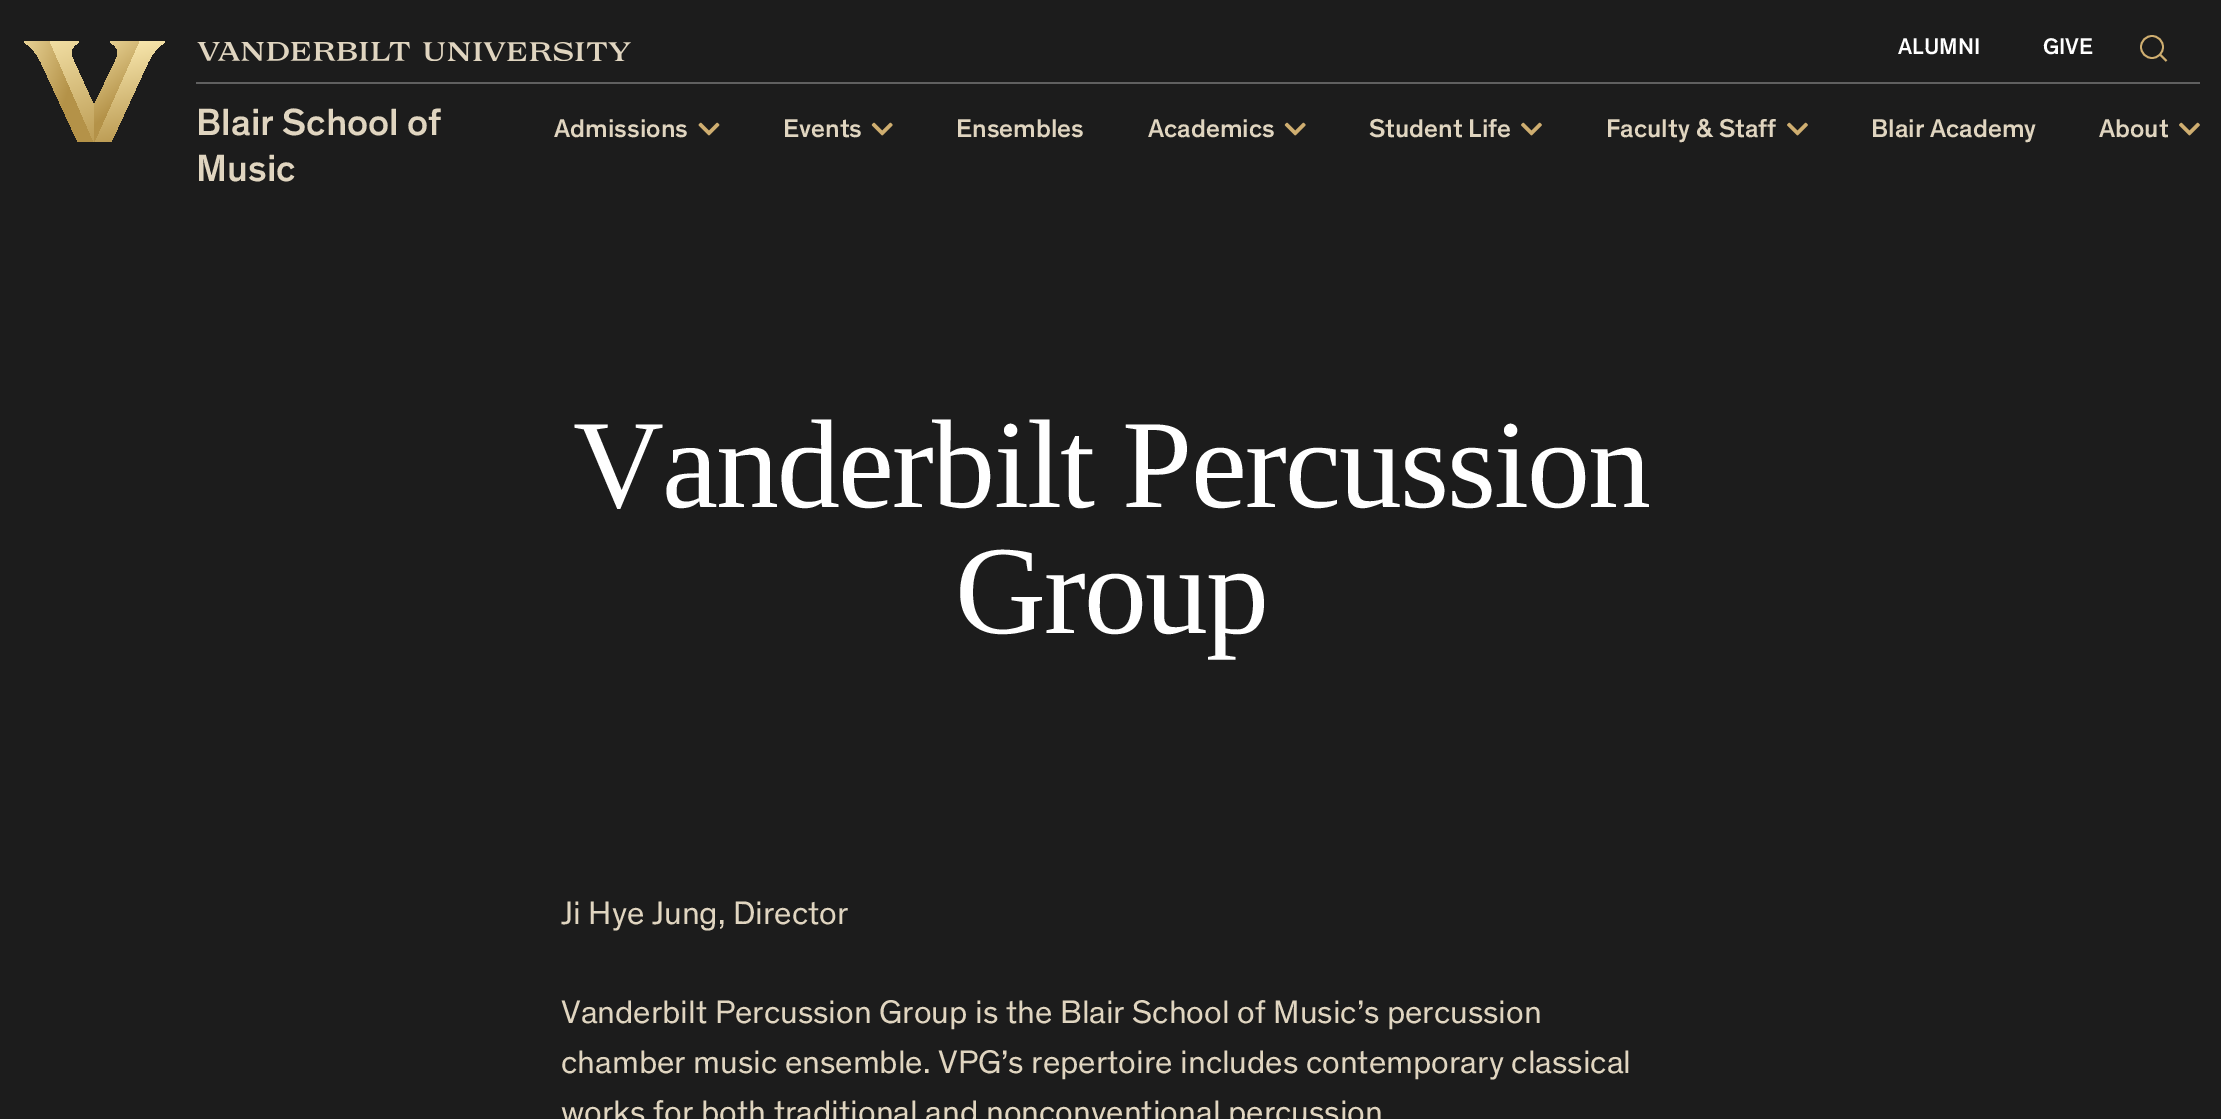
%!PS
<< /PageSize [2221 1119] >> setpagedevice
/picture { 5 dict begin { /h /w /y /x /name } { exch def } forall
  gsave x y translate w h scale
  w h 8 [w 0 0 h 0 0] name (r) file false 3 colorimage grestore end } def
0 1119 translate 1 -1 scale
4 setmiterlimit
0.11 setgray
0 0 2221 1119 rectfill
gsave newpath 50 41 moveto 24 41 lineto 24 42 lineto 32 47 36 52 41 62 curveto 78 142 lineto 94 142 lineto closepath clip newpath
<< /ShadingType 2 /ColorSpace /DeviceRGB /Coords [-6.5 51 73 79] /Extend [true true] /Function << /FunctionType 2 /Domain [0 1] /C0 [0.996 0.933 0.714] /C1 [0.706 0.573 0.282] /N 1 >> >> shfill grestore
gsave newpath 94 142 moveto 94 106 lineto 74 62 lineto 69 52 70 47 79 42 curveto 79 41 lineto 50 41 lineto closepath clip newpath
<< /ShadingType 2 /ColorSpace /DeviceRGB /Coords [33 19 93 163] /Extend [true true] /Function << /FunctionType 2 /Domain [0 1] /C0 [0.996 0.933 0.714] /C1 [0.706 0.573 0.282] /N 1 >> >> shfill grestore
gsave newpath 139 41 moveto 165 41 lineto 165 42 lineto 157 47 153 52 148 62 curveto 111 142 lineto 94 142 lineto closepath clip newpath
<< /ShadingType 2 /ColorSpace /DeviceRGB /Coords [95 42 124 152] /Extend [true true] /Function << /FunctionType 2 /Domain [0 1] /C0 [0.996 0.933 0.714] /C1 [0.706 0.573 0.282] /N 1 >> >> shfill grestore
gsave newpath 94 142 moveto 94 106 lineto 115 62 lineto 120 52 119 47 110 42 curveto 110 41 lineto 139 41 lineto closepath clip newpath
<< /ShadingType 2 /ColorSpace /DeviceRGB /Coords [74 35 127 99] /Extend [true true] /Function << /FunctionType 2 /Domain [0 1] /C0 [0.996 0.933 0.714] /C1 [0.706 0.573 0.282] /N 1 >> >> shfill grestore
(img1.rgb) 197 42 434 19 picture
/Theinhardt-Medium [23 0 0 -23 0 0] selectfont
1 setgray
1898 54 moveto (ALUMNI) show
2043 54 moveto (GIVE) show
0.812 0.682 0.439 setrgbcolor
1.8 setlinewidth
newpath 2152 47 11 0 360 arc closepath stroke
newpath 2160.5 55 moveto 2166.5 61 lineto stroke
0.376 setgray
196 82 2004 2 rectfill
/Theinhardt-Medium [38.5 0 0 -38.5 0 0] selectfont
0.878 0.835 0.753 setrgbcolor
196 135 moveto (Blair School of) show
196 181 moveto (Music) show
/Theinhardt-Medium [26.25 0 0 -26.25 0 0] selectfont
554 137 moveto (Admissions) show
(img2.rgb) 698 122 22 14 picture
783 137 moveto (Events) show
(img3.rgb) 871 122 22 14 picture
956 137 moveto (Ensembles) show
1148 137 moveto (Academics) show
(img3.rgb) 1284 122 22 14 picture
1369 137 moveto (Student Life) show
(img4.rgb) 1521 122 21 14 picture
1606 137 moveto (Faculty & Staff) show
(img4.rgb) 1787 122 21 14 picture
1871 137 moveto (Blair Academy) show
2099 137 moveto (About) show
(img4.rgb) 2179 122 21 14 picture
/LiberationSerif-Regular [126 0 0 -126 0 0] selectfont
1 setgray
573 507 moveto -1.9 0 (Vanderbilt Percussion) ashow
955 633 moveto -1.9 0 (Group) ashow
/Theinhardt-Regular [33.25 0 0 -33.25 0 0] selectfont
0.878 0.835 0.753 setrgbcolor
561 924 moveto (Ji Hye Jung, Director) show
561 1023 moveto (Vanderbilt Percussion Group is the Blair School of Music’s percussion) show
561 1073 moveto (chamber music ensemble. VPG’s repertoire includes contemporary classical) show
561 1123 moveto (works for both traditional and nonconventional percussion) show
showpage
